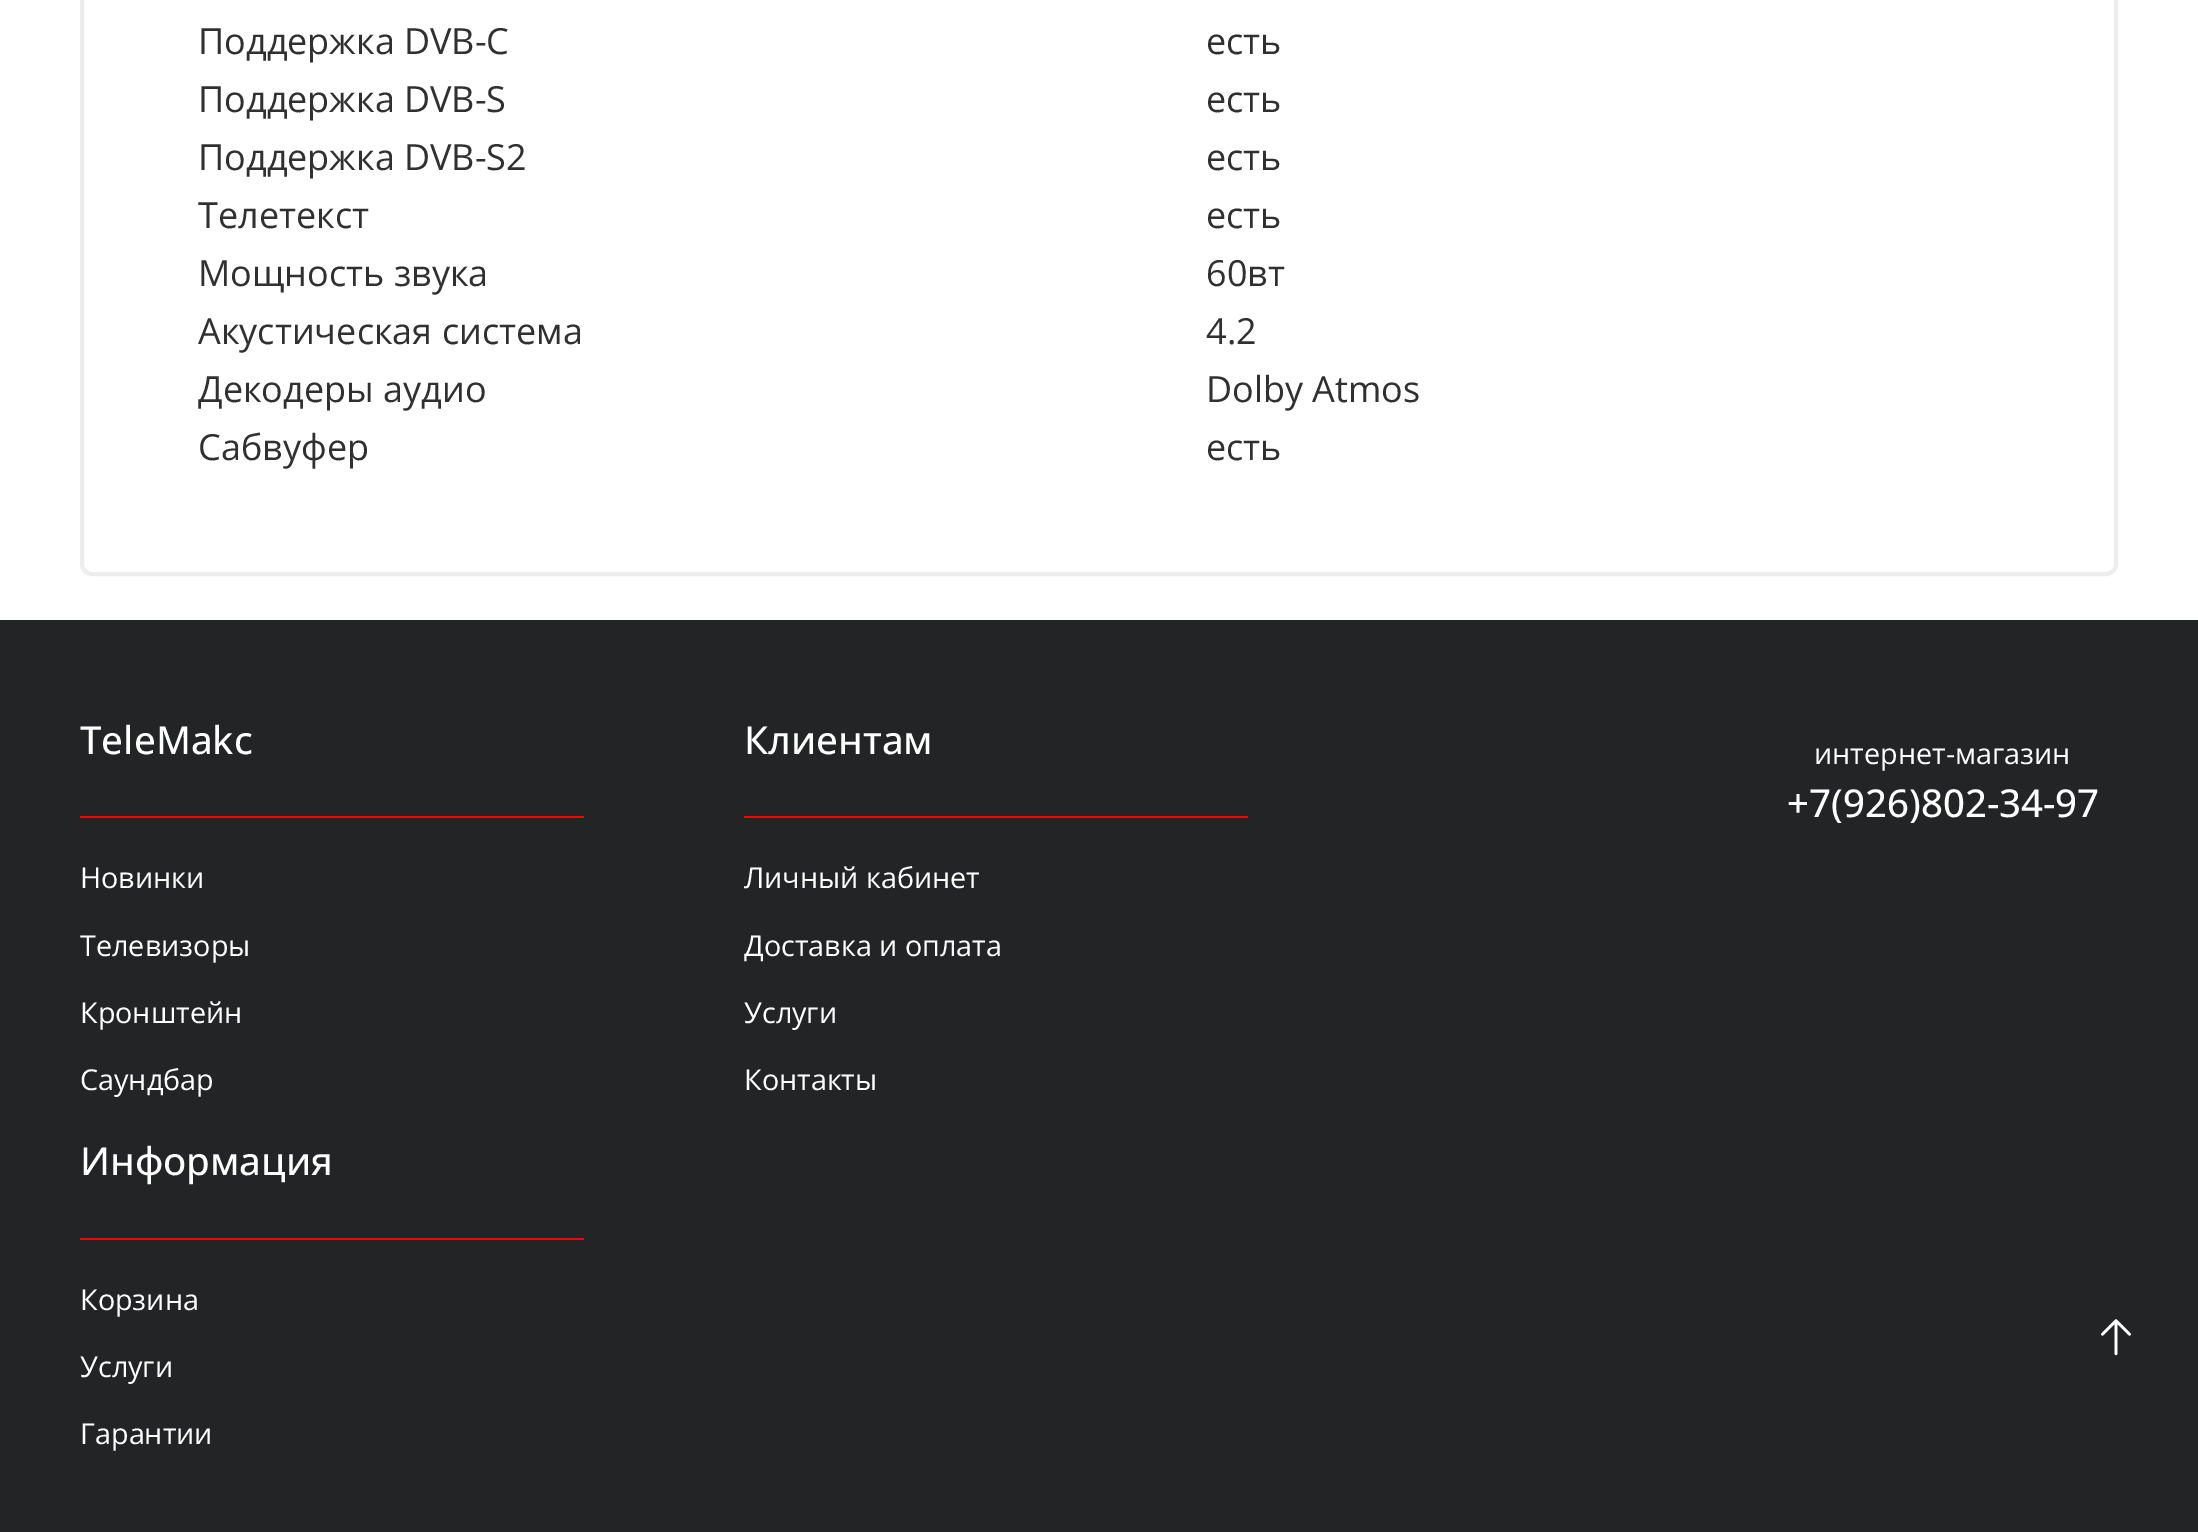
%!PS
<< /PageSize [2198 1532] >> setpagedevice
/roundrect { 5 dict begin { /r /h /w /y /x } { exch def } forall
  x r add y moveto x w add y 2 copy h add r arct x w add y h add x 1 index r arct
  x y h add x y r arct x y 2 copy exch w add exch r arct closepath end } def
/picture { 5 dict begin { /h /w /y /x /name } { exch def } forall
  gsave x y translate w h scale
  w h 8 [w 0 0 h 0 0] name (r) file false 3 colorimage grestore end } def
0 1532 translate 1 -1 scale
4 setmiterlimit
1 setgray
0 0 2198 1532 rectfill
0.929 setgray
4 setlinewidth
82 -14 2034 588 10 roundrect stroke
/OpenSans-Regular [36 0 0 -36 0 0] selectfont
0.188 setgray
198 54 moveto (Поддержка DVB-C) show
1206 54 moveto (есть) show
198 112 moveto (Поддержка DVB-S) show
1206 112 moveto (есть) show
198 170 moveto (Поддержка DVB-S2) show
1206 170 moveto (есть) show
198 228 moveto (Телетекст) show
1206 228 moveto (есть) show
198 286 moveto (Мощность звука) show
1206 286 moveto (60вт) show
198 344 moveto (Акустическая система) show
1206 344 moveto (4.2) show
198 402 moveto (Декодеры аудио) show
1206 402 moveto (Dolby Atmos) show
198 460 moveto (Сабвуфер) show
1206 460 moveto (есть) show
0.133 0.141 0.145 setrgbcolor
0 620 2198 912 rectfill
/OpenSans-Medium [38.5 0 0 -38.5 0 0] selectfont
1 setgray
80 754 moveto (TeleMakc) show
1 0 0 setrgbcolor
80 816 504 2 rectfill
/OpenSans-Regular [28.75 0 0 -28.75 0 0] selectfont
1 setgray
80 888 moveto (Новинки) show
80 956 moveto (Телевизоры) show
80 1023 moveto (Кронштейн) show
80 1090 moveto (Саундбар) show
/OpenSans-Medium [38.5 0 0 -38.5 0 0] selectfont
744 754 moveto (Клиентам) show
1 0 0 setrgbcolor
744 816 504 2 rectfill
/OpenSans-Regular [28.75 0 0 -28.75 0 0] selectfont
1 setgray
744 888 moveto (Личный кабинет) show
744 956 moveto (Доставка и оплата) show
744 1023 moveto (Услуги) show
744 1090 moveto (Контакты) show
/OpenSans-Medium [38.5 0 0 -38.5 0 0] selectfont
80 1175 moveto (Информация) show
1 0 0 setrgbcolor
80 1238 504 2 rectfill
/OpenSans-Regular [28.75 0 0 -28.75 0 0] selectfont
1 setgray
80 1310 moveto (Корзина) show
80 1377 moveto (Услуги) show
80 1444 moveto (Гарантии) show
1814 764 moveto (интернет-магазин) show
/OpenSans-Medium [38.5 0 0 -38.5 0 0] selectfont
1787 817 moveto (+7\(926\)802-34-97) show
(img1.rgb) 2101 1319 30 37 picture
showpage
